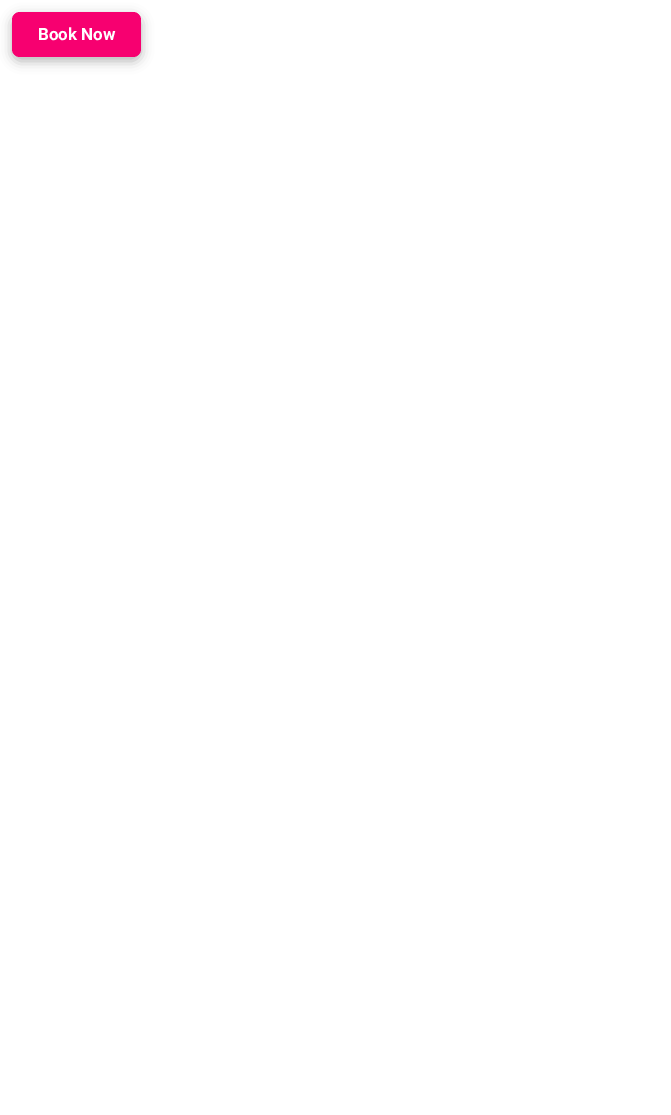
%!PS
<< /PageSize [671 1115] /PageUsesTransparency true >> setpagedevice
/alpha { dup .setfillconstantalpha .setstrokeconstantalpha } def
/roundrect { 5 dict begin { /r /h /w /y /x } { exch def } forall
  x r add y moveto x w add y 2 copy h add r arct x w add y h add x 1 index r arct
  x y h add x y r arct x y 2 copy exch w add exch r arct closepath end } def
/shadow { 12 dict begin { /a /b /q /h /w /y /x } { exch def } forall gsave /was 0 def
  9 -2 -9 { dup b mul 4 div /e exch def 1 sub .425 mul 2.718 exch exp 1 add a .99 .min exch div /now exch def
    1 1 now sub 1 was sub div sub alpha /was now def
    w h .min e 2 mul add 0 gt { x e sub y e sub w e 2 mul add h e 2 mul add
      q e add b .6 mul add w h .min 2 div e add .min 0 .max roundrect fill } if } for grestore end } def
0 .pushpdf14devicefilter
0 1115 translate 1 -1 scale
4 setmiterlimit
1 setgray
0 0 671 1115 rectfill
0 setgray
12 16 129 45 8 6 0.3 shadow
0.969 0 0.439 setrgbcolor
12 12 129 45 8 roundrect fill
/Roboto-Bold [17 0 0 -17 0 0] selectfont
1 setgray
38 40 moveto (Book Now) show
.poppdf14devicefilter showpage
